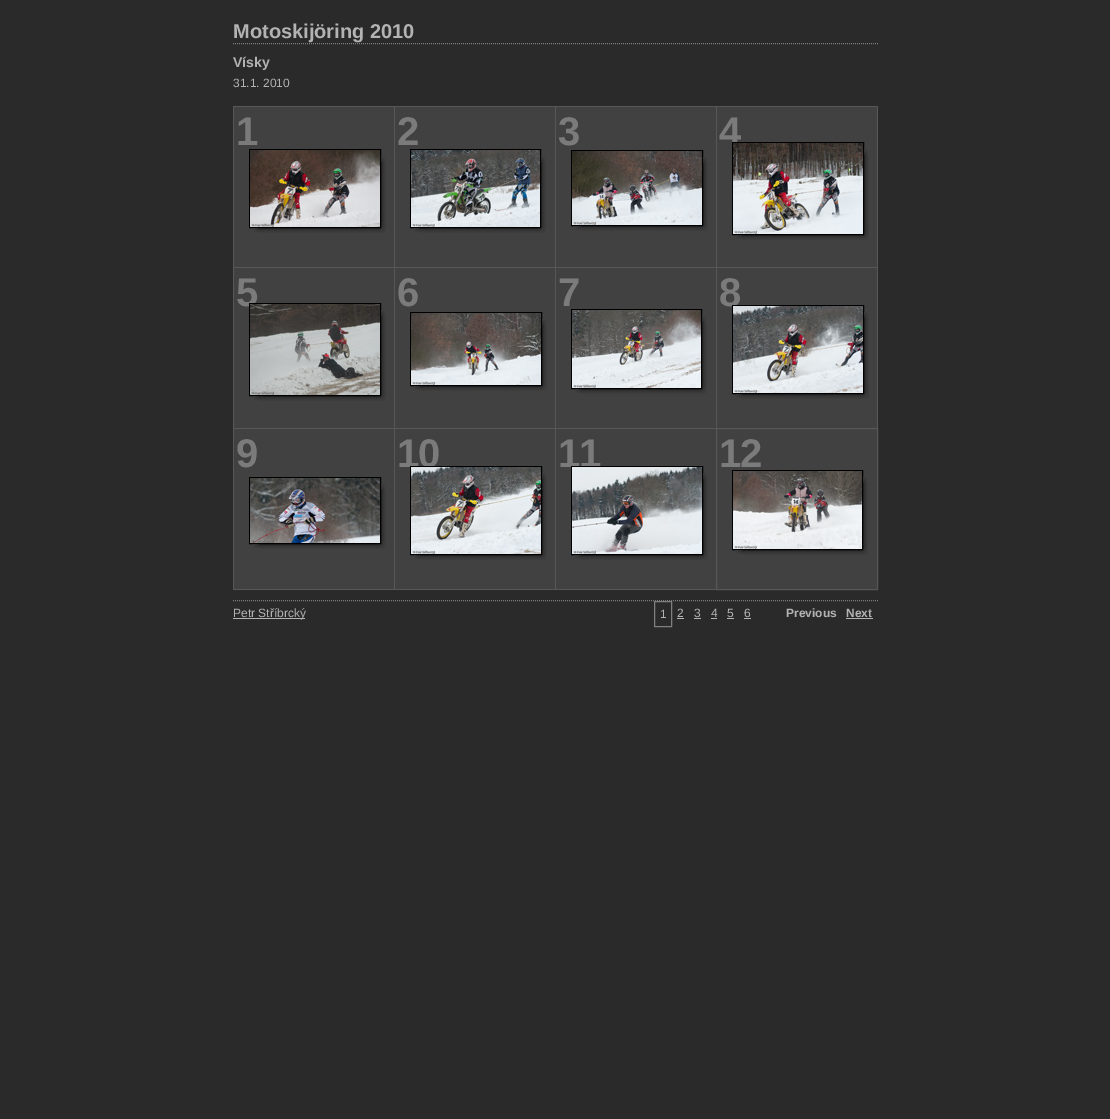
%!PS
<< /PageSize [1110 1119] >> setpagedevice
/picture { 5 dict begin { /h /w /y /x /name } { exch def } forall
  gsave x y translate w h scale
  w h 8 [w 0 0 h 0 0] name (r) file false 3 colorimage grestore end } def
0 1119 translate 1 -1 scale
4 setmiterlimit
0.165 setgray
0 0 1110 1119 rectfill
0.498 setgray
[1 1] 0 setdash
newpath 233 43.5 moveto 878 43.5 lineto stroke
/LiberationSans-Bold [20 0 0 -20 0 0] selectfont
0.702 setgray
233 38 moveto (Motoskijöring 2010) show
/LiberationSans-Bold [14 0 0 -14 0 0] selectfont
233 67 moveto (Vísky) show
/LiberationSans-Regular [12 0 0 -12 0 0] selectfont
233 87 moveto (31.1. 2010) show
0.498 setgray
newpath 233 600.5 moveto 878 600.5 lineto stroke
0.255 setgray
234 107 160 160 rectfill
0.341 setgray
233 106 645 1 rectfill
233 106 1 161 rectfill
/LiberationSans-Bold [40 0 0 -40 0 0] selectfont
0.482 setgray
236 145 moveto -1 0 (1) ashow
(img1.rgb) 259 162 127 71 picture
0 setgray
[] 0 setdash
249.5 149.5 131 78 rectstroke
(img2.rgb) 250 150 130 77 picture
(img3.rgb) 381 156 4 6 picture
(img4.rgb) 253 228 6 4 picture
0.255 setgray
395 107 160 160 rectfill
0.341 setgray
394 106 1 161 rectfill
0.482 setgray
397 145 moveto -1 0 (2) ashow
(img5.rgb) 420 162 126 71 picture
0 setgray
410.5 149.5 130 78 rectstroke
(img6.rgb) 411 150 129 77 picture
(img3.rgb) 541 156 4 6 picture
(img4.rgb) 414 228 6 4 picture
0.255 setgray
556 107 160 160 rectfill
0.341 setgray
555 106 1 161 rectfill
0.482 setgray
558 145 moveto -1 0 (3) ashow
(img7.rgb) 581 163 127 68 picture
0 setgray
571.5 150.5 131 75 rectstroke
(img8.rgb) 572 151 130 74 picture
(img3.rgb) 703 157 4 6 picture
(img4.rgb) 575 226 6 4 picture
0.255 setgray
717 107 160 160 rectfill
0.341 setgray
877 106 1 161 rectfill
716 106 1 161 rectfill
0.482 setgray
719 145 moveto -1 0 (4) ashow
(img9.rgb) 742 155 127 85 picture
0 setgray
732.5 142.5 131 92 rectstroke
(img10.rgb) 733 143 130 91 picture
(img3.rgb) 864 149 4 6 picture
(img4.rgb) 736 235 6 4 picture
0.255 setgray
234 268 160 160 rectfill
0.341 setgray
233 267 645 1 rectfill
233 267 1 161 rectfill
0.482 setgray
236 306 moveto -1 0 (5) ashow
(img9.rgb) 259 316 127 85 picture
0 setgray
249.5 303.5 131 92 rectstroke
(img11.rgb) 250 304 130 91 picture
(img3.rgb) 381 310 4 6 picture
(img4.rgb) 253 396 6 4 picture
0.255 setgray
395 268 160 160 rectfill
0.341 setgray
394 267 1 161 rectfill
0.482 setgray
397 306 moveto -1 0 (6) ashow
(img12.rgb) 420 325 127 66 picture
0 setgray
410.5 312.5 131 73 rectstroke
(img13.rgb) 411 313 130 72 picture
(img3.rgb) 542 319 4 6 picture
(img4.rgb) 414 386 6 4 picture
0.255 setgray
556 268 160 160 rectfill
0.341 setgray
555 267 1 161 rectfill
0.482 setgray
558 306 moveto -1 0 (7) ashow
(img14.rgb) 581 322 126 72 picture
0 setgray
571.5 309.5 130 79 rectstroke
(img15.rgb) 572 310 129 78 picture
(img3.rgb) 702 316 4 6 picture
(img4.rgb) 575 389 6 4 picture
0.255 setgray
717 268 160 160 rectfill
0.341 setgray
877 267 1 161 rectfill
716 267 1 161 rectfill
0.482 setgray
719 306 moveto -1 0 (8) ashow
(img16.rgb) 742 318 127 81 picture
0 setgray
732.5 305.5 131 88 rectstroke
(img17.rgb) 733 306 130 87 picture
(img3.rgb) 864 312 4 6 picture
(img4.rgb) 736 394 6 4 picture
0.255 setgray
234 429 160 160 rectfill
0.341 setgray
233 428 483 1 rectfill
233 589 483 1 rectfill
233 428 1 162 rectfill
0.482 setgray
236 467 moveto -1 0 (9) ashow
(img18.rgb) 259 490 127 59 picture
0 setgray
249.5 477.5 131 66 rectstroke
(img19.rgb) 250 478 130 65 picture
(img3.rgb) 381 484 4 6 picture
(img4.rgb) 253 544 6 4 picture
0.255 setgray
395 429 160 160 rectfill
0.341 setgray
394 428 1 162 rectfill
0.482 setgray
397 467 moveto -1 0 (10) ashow
(img16.rgb) 420 479 127 81 picture
0 setgray
410.5 466.5 131 88 rectstroke
(img20.rgb) 411 467 130 87 picture
(img3.rgb) 542 473 4 6 picture
(img4.rgb) 414 555 6 4 picture
0.255 setgray
556 429 160 160 rectfill
0.341 setgray
555 428 1 162 rectfill
0.482 setgray
558 467 moveto -1 0 (11) ashow
(img16.rgb) 581 479 127 81 picture
0 setgray
571.5 466.5 131 88 rectstroke
(img21.rgb) 572 467 130 87 picture
(img3.rgb) 703 473 4 6 picture
(img4.rgb) 575 555 6 4 picture
0.255 setgray
newpath 716.5 428.5 moveto 877.5 428.5 lineto 877.5 589.5 lineto 716.5 589.5 lineto closepath gsave fill grestore
0.341 setgray
stroke
0.482 setgray
719 467 moveto -1 0 (12) ashow
(img14.rgb) 742 483 126 72 picture
0 setgray
732.5 470.5 130 79 rectstroke
(img22.rgb) 733 471 129 78 picture
(img3.rgb) 863 477 4 6 picture
(img4.rgb) 736 550 6 4 picture
0.702 setgray
233 618 72 1 rectfill
/LiberationSans-Regular [12 0 0 -12 0 0] selectfont
233 617 moveto (Petr Stříbrcký) show
0.498 setgray
654.5 601.5 17 25 rectstroke
0.702 setgray
660 618 moveto (1) show
677 617 moveto (2) show
677 618 7 1 rectfill
694 617 moveto (3) show
694 618 7 1 rectfill
711 617 moveto (4) show
711 618 6 1 rectfill
727 617 moveto (5) show
727 618 7 1 rectfill
744 617 moveto (6) show
744 618 7 1 rectfill
/LiberationSans-Bold [12 0 0 -12 0 0] selectfont
786 617 moveto (Previous) show
846 617 moveto (Next) show
846 618 27 1 rectfill
showpage
